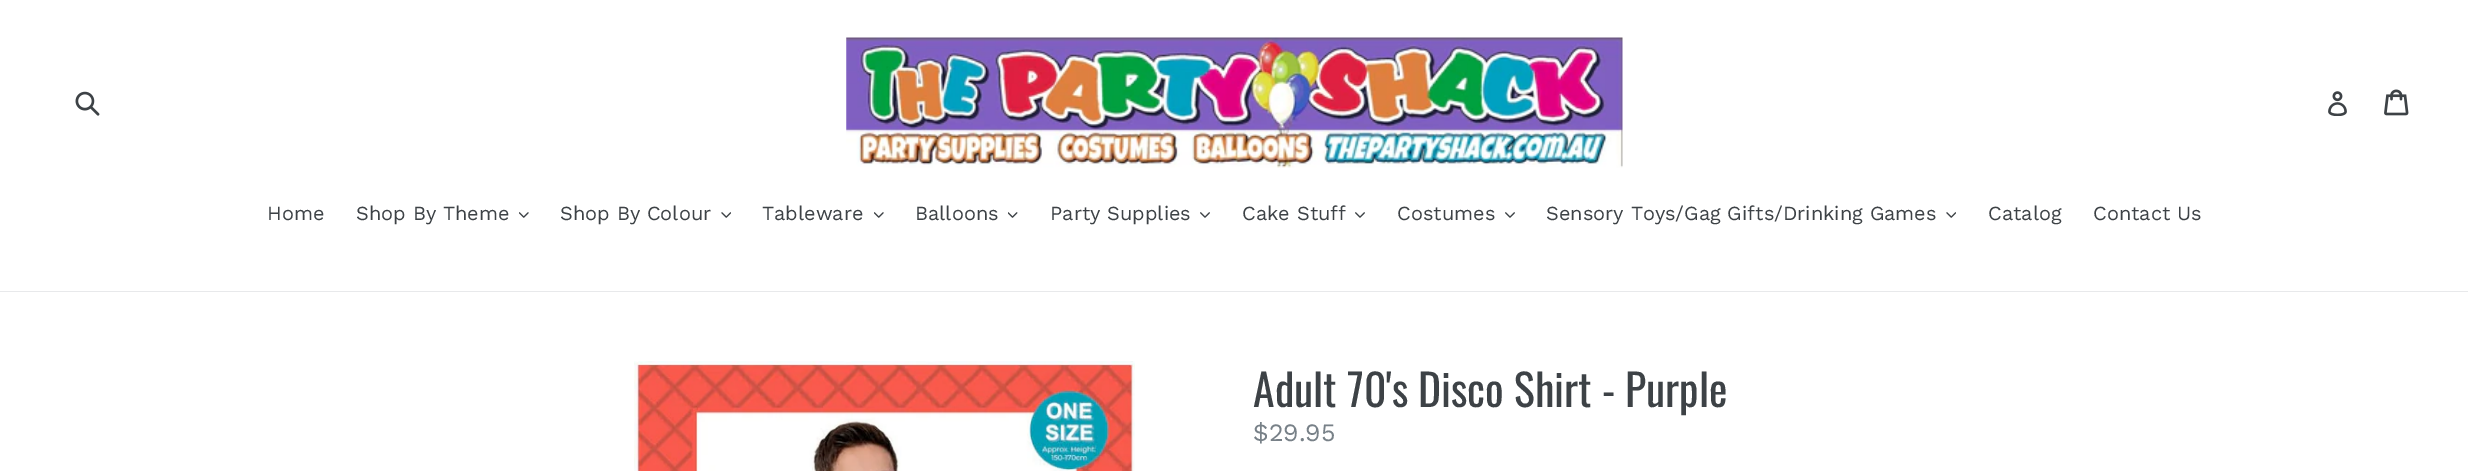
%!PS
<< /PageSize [2468 471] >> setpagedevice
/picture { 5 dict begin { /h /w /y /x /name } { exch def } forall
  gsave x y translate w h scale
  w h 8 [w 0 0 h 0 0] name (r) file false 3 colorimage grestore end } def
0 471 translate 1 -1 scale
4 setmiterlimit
1 setgray
0 0 2468 471 rectfill
(img1.rgb) 75 91 25 25 picture
(img2.rgb) 846 37 777 131 picture
(img3.rgb) 2328 91 19 25 picture
(img4.rgb) 2384 89 25 27 picture
0.91 0.914 0.922 setrgbcolor
0 291 2468 1 rectfill
/WorkSans-Regular [20 0 0 -20 0 0] selectfont
0.239 0.259 0.275 setrgbcolor
267 220 moveto (Home) show
356 220 moveto (Shop By Theme) show
(img5.rgb) 519 212 10 6 picture
560 220 moveto (Shop By Colour) show
(img6.rgb) 721 212 10 6 picture
762 220 moveto (Tableware) show
(img5.rgb) 874 212 10 6 picture
915 220 moveto (Balloons) show
(img7.rgb) 1008 212 10 6 picture
1050 220 moveto (Party Supplies) show
(img8.rgb) 1200 212 10 6 picture
1242 220 moveto (Cake Stuff) show
(img8.rgb) 1355 212 10 6 picture
1397 220 moveto (Costumes) show
(img8.rgb) 1505 212 10 6 picture
1546 220 moveto (Sensory Toys/Gag Gifts/Drinking Games) show
(img6.rgb) 1946 212 10 6 picture
1988 220 moveto (Catalog) show
2093 220 moveto (Contact Us) show
(img9.rgb) 634 361 501 110 picture
/Oswald-Regular [43.75 0 0 -43.75 0 0] selectfont
1253 407 moveto (Adult 70's Disco Shirt - Purple) show
/WorkSans-Regular [25 0 0 -25 0 0] selectfont
0.471 0.506 0.533 setrgbcolor
1253 441 moveto ($29.95) show
showpage
